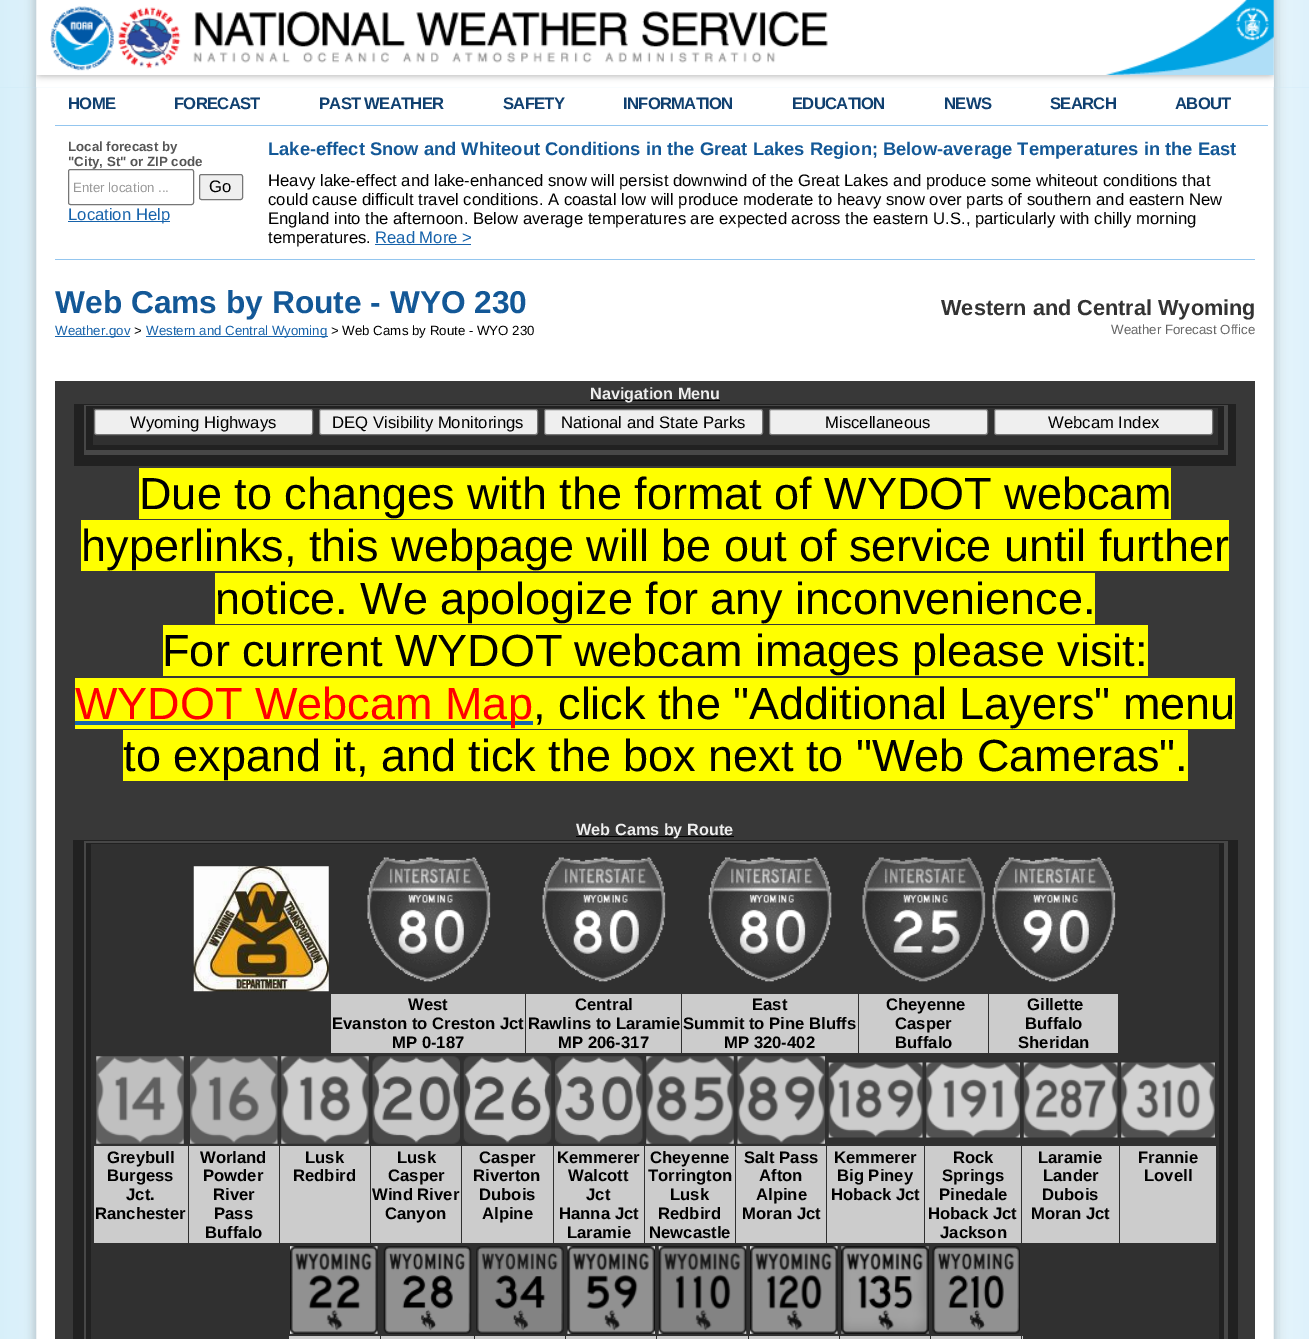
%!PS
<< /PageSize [1309 1339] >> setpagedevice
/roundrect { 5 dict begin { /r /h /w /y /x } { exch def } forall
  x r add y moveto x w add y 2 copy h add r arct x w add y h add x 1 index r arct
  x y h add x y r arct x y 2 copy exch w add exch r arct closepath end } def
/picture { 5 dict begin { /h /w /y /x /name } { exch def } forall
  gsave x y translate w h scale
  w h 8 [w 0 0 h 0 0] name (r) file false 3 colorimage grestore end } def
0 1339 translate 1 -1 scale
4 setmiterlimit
1 setgray
0 0 1309 1339 rectfill
(img1.rgb) 0 87 1309 1 picture
(img2.rgb) 0 0 1309 75 picture
(img3.rgb) 50 6 778 65 picture
(img4.rgb) 1105 0 169 75 picture
(img5.rgb) 0 75 1309 13 picture
(img6.rgb) 36 75 1238 13 picture
(img7.rgb) 0 87 1309 1252 picture
0.58 0.776 0.937 setrgbcolor
55 125 1213 1 rectfill
/LiberationSans-Bold [16.67 0 0 -16.67 0 0] selectfont
0.063 0.251 0.439 setrgbcolor
68 109 moveto -0.75 0 (HOME) ashow
174 109 moveto -0.75 0 (FORECAST) ashow
319 109 moveto -0.75 0 (PAST WEATHER) ashow
503 109 moveto -0.75 0 (SAFETY) ashow
623 109 moveto -0.75 0 (INFORMATION) ashow
792 109 moveto -0.75 0 (EDUCATION) ashow
944 109 moveto -0.75 0 (NEWS) ashow
1050 109 moveto -0.75 0 (SEARCH) ashow
1175 109 moveto -0.75 0 (ABOUT) ashow
/LiberationSans-Bold [13.3 0 0 -13.3 0 0] selectfont
0.333 setgray
68 151 moveto (Local forecast by) show
68 166 moveto ("City, St" or ZIP code) show
0.463 setgray
68.5 169.5 125 35 2 roundrect stroke
/LiberationSans-Regular [13.3 0 0 -13.3 0 0] selectfont
0.6 setgray
73 192 moveto (Enter location ...) show
0.937 setgray
199.5 174.5 43 25 2 roundrect gsave fill grestore
0.463 setgray
stroke
/LiberationSans-Regular [16.67 0 0 -16.67 0 0] selectfont
0 setgray
209 192 moveto (Go) show
0.09 0.388 0.671 setrgbcolor
68 221 102 1 rectfill
68 220 moveto (Location Help) show
/LiberationSans-Bold [18.33 0 0 -18.33 0 0] selectfont
0.075 0.345 0.592 setrgbcolor
268 155 moveto (Lake-effect Snow and Whiteout Conditions in the Great Lakes Region; Below-average Temperatures in the East) show
/LiberationSans-Regular [16.67 0 0 -16.67 0 0] selectfont
0 setgray
268 186 moveto (Heavy lake-effect and lake-enhanced snow will persist downwind of the Great Lakes and produce some whiteout conditions that) show
268 205 moveto (could cause difficult travel conditions. A coastal low will produce moderate to heavy snow over parts of southern and eastern New) show
268 224 moveto (England into the afternoon. Below average temperatures are expected across the eastern U.S., particularly with chilly morning) show
268 243 moveto (temperatures.) show
0.09 0.388 0.671 setrgbcolor
375 243 moveto (Read More >) show
375 244 96 1 rectfill
0.58 0.776 0.937 setrgbcolor
55 259 1200 1 rectfill
/LiberationSans-Bold [31.7 0 0 -31.7 0 0] selectfont
0.075 0.345 0.592 setrgbcolor
55 313 moveto (Web Cams by Route - WYO 230) show
0.09 0.388 0.671 setrgbcolor
55 336 75 1 rectfill
/LiberationSans-Regular [13.3 0 0 -13.3 0 0] selectfont
55 335 moveto (Weather.gov) show
0 setgray
134 335 moveto (>) show
0.09 0.388 0.671 setrgbcolor
146 336 182 1 rectfill
146 335 moveto (Western and Central Wyoming) show
0 setgray
331 335 moveto (> Web Cams by Route - WYO 230) show
/LiberationSans-Bold [21.7 0 0 -21.7 0 0] selectfont
0.2 setgray
941 315 moveto (Western and Central Wyoming) show
/LiberationSans-Regular [13.3 0 0 -13.3 0 0] selectfont
0.4 setgray
1111 334 moveto (Weather Forecast Office) show
0.22 setgray
55 381 1200 958 rectfill
0 setgray
590 400 130 1 rectfill
/LiberationSans-Bold [16.25 0 0 -16.25 0 0] selectfont
0.933 setgray
590 399 moveto (Navigation Menu) show
0.129 setgray
74 404 1162 62 rectfill
0.278 setgray
84 405 1144 50 rectfill
0.129 setgray
86 406 1138 44 rectfill
0.188 setgray
93 408 1125 37 rectfill
0.937 setgray
94.5 409.5 218 25 2 roundrect gsave fill grestore
0.463 setgray
stroke
/LiberationSans-Regular [16.67 0 0 -16.67 0 0] selectfont
0 setgray
130 428 moveto (Wyoming Highways) show
0.937 setgray
319.5 409.5 218 25 2 roundrect gsave fill grestore
0.463 setgray
stroke
0 setgray
332 428 moveto (DEQ Visibility Monitorings) show
0.937 setgray
544.5 409.5 218 25 2 roundrect gsave fill grestore
0.463 setgray
stroke
0 setgray
561 428 moveto (National and State Parks) show
0.937 setgray
769.5 409.5 218 25 2 roundrect gsave fill grestore
0.463 setgray
stroke
0 setgray
825 428 moveto (Miscellaneous) show
0.937 setgray
994.5 409.5 218 25 2 roundrect gsave fill grestore
0.463 setgray
stroke
0 setgray
1048 428 moveto (Webcam Index) show
1 1 0 setrgbcolor
139 468 1032 51 rectfill
/LiberationSans-Regular [45 0 0 -45 0 0] selectfont
0 setgray
139 509 moveto (Due to changes with the format of WYDOT webcam) show
1 1 0 setrgbcolor
81 520 1148 51 rectfill
0 setgray
81 561 moveto (hyperlinks, this webpage will be out of service until further) show
1 1 0 setrgbcolor
215 573 880 51 rectfill
0 setgray
215 614 moveto (notice. We apologize for any inconvenience.) show
1 1 0 setrgbcolor
163 625 985 51 rectfill
0 setgray
162 666 moveto (For current WYDOT webcam images please visit:) show
1 1 0 setrgbcolor
75 678 1160 51 rectfill
0.09 0.388 0.671 setrgbcolor
75 721 458 4 rectfill
1 0 0 setrgbcolor
75 719 moveto (WYDOT Webcam Map) show
0 setgray
533 719 moveto (, click the "Additional Layers" menu) show
1 1 0 setrgbcolor
123 730 1065 51 rectfill
0 setgray
123 771 moveto (to expand it, and tick the box next to "Web Cameras".) show
576 836 158 1 rectfill
/LiberationSans-Bold [16.25 0 0 -16.25 0 0] selectfont
0.933 setgray
576 835 moveto (Web Cams by Route) show
0.129 setgray
73 840 1165 499 rectfill
0.278 setgray
84 841 1144 498 rectfill
0.129 setgray
86 843 1138 496 rectfill
0.188 setgray
91 844 1128 495 rectfill
(img8.rgb) 193 866 136 126 picture
(img9.rgb) 367 857 124 125 picture
(img10.rgb) 542 857 124 125 picture
(img11.rgb) 708 857 124 125 picture
(img12.rgb) 862 857 124 125 picture
(img13.rgb) 992 857 124 125 picture
0.8 setgray
331 994 194 59 rectfill
/LiberationSans-Bold [16.67 0 0 -16.67 0 0] selectfont
0 setgray
408 1010 moveto (West) show
332 1029 moveto (Evanston to Creston Jct) show
392 1048 moveto (MP 0-187) show
0.8 setgray
526 994 155 59 rectfill
0 setgray
575 1010 moveto (Central) show
528 1029 moveto (Rawlins to Laramie) show
558 1048 moveto (MP 206-317) show
0.8 setgray
682 994 176 59 rectfill
0 setgray
752 1010 moveto (East) show
683 1029 moveto (Summit to Pine Bluffs) show
724 1048 moveto (MP 320-402) show
0.8 setgray
859 994 129 59 rectfill
0 setgray
886 1010 moveto (Cheyenne) show
895 1029 moveto (Casper) show
895 1048 moveto (Buffalo) show
0.8 setgray
989 994 129 59 rectfill
0 setgray
1027 1010 moveto (Gillette) show
1025 1029 moveto (Buffalo) show
1018 1048 moveto (Sheridan) show
(img14.rgb) 96 1056 88 88 picture
(img15.rgb) 190 1056 88 88 picture
(img16.rgb) 281 1056 88 88 picture
(img17.rgb) 372 1056 88 88 picture
(img18.rgb) 463 1056 89 88 picture
(img19.rgb) 555 1056 88 88 picture
(img20.rgb) 646 1056 88 88 picture
(img21.rgb) 737 1056 88 88 picture
(img22.rgb) 828 1062 95 76 picture
(img23.rgb) 926 1062 94 76 picture
(img24.rgb) 1023 1062 95 76 picture
(img25.rgb) 1121 1062 94 76 picture
0.8 setgray
94 1146 94 97 rectfill
0 setgray
107 1163 moveto (Greybull) show
107 1181 moveto (Burgess) show
126 1200 moveto (Jct.) show
95 1219 moveto (Ranchester) show
0.8 setgray
189 1146 90 97 rectfill
0 setgray
200 1163 moveto (Worland) show
203 1181 moveto (Powder) show
213 1200 moveto (River) show
214 1219 moveto (Pass) show
205 1238 moveto (Buffalo) show
0.8 setgray
280 1146 90 97 rectfill
0 setgray
305 1163 moveto (Lusk) show
293 1181 moveto (Redbird) show
0.8 setgray
371 1146 90 97 rectfill
0 setgray
397 1163 moveto (Lusk) show
388 1181 moveto (Casper) show
372 1200 moveto (Wind River) show
385 1219 moveto (Canyon) show
0.8 setgray
462 1146 91 97 rectfill
0 setgray
479 1163 moveto (Casper) show
473 1181 moveto (Riverton) show
479 1200 moveto (Dubois) show
482 1219 moveto (Alpine) show
0.8 setgray
554 1146 90 97 rectfill
0 setgray
557 1163 moveto (Kemmerer) show
568 1181 moveto (Walcott) show
586 1200 moveto (Jct) show
559 1219 moveto (Hanna Jct) show
567 1238 moveto (Laramie) show
0.8 setgray
645 1146 90 97 rectfill
0 setgray
650 1163 moveto (Cheyenne) show
648 1181 moveto (Torrington) show
670 1200 moveto (Lusk) show
658 1219 moveto (Redbird) show
649 1238 moveto (Newcastle) show
0.8 setgray
736 1146 90 97 rectfill
0 setgray
744 1163 moveto (Salt Pass) show
759 1181 moveto (Afton) show
756 1200 moveto (Alpine) show
742 1219 moveto (Moran Jct) show
0.8 setgray
827 1146 97 97 rectfill
0 setgray
834 1163 moveto (Kemmerer) show
837 1181 moveto (Big Piney) show
831 1200 moveto (Hoback Jct) show
0.8 setgray
925 1146 96 97 rectfill
0 setgray
953 1163 moveto (Rock) show
942 1181 moveto (Springs) show
939 1200 moveto (Pinedale) show
928 1219 moveto (Hoback Jct) show
940 1238 moveto (Jackson) show
0.8 setgray
1022 1146 97 97 rectfill
0 setgray
1038 1163 moveto (Laramie) show
1043 1181 moveto (Lander) show
1042 1200 moveto (Dubois) show
1031 1219 moveto (Moran Jct) show
0.8 setgray
1120 1146 96 97 rectfill
0 setgray
1138 1163 moveto (Frannie) show
1144 1181 moveto (Lovell) show
(img26.rgb) 290 1246 88 88 picture
(img27.rgb) 383 1246 89 88 picture
(img28.rgb) 476 1246 88 88 picture
(img29.rgb) 567 1246 88 88 picture
(img30.rgb) 658 1246 89 88 picture
(img31.rgb) 750 1246 88 88 picture
(img32.rgb) 841 1246 88 88 picture
(img33.rgb) 932 1246 88 88 picture
0.8 setgray
288 1336 735 3 rectfill
0.188 setgray
288 1335 1 4 rectfill
380 1335 1 4 rectfill
474 1335 1 4 rectfill
565 1335 1 4 rectfill
656 1335 1 4 rectfill
748 1335 1 4 rectfill
839 1335 1 4 rectfill
1021 1335 1 4 rectfill
930 1335 1 4 rectfill
showpage
